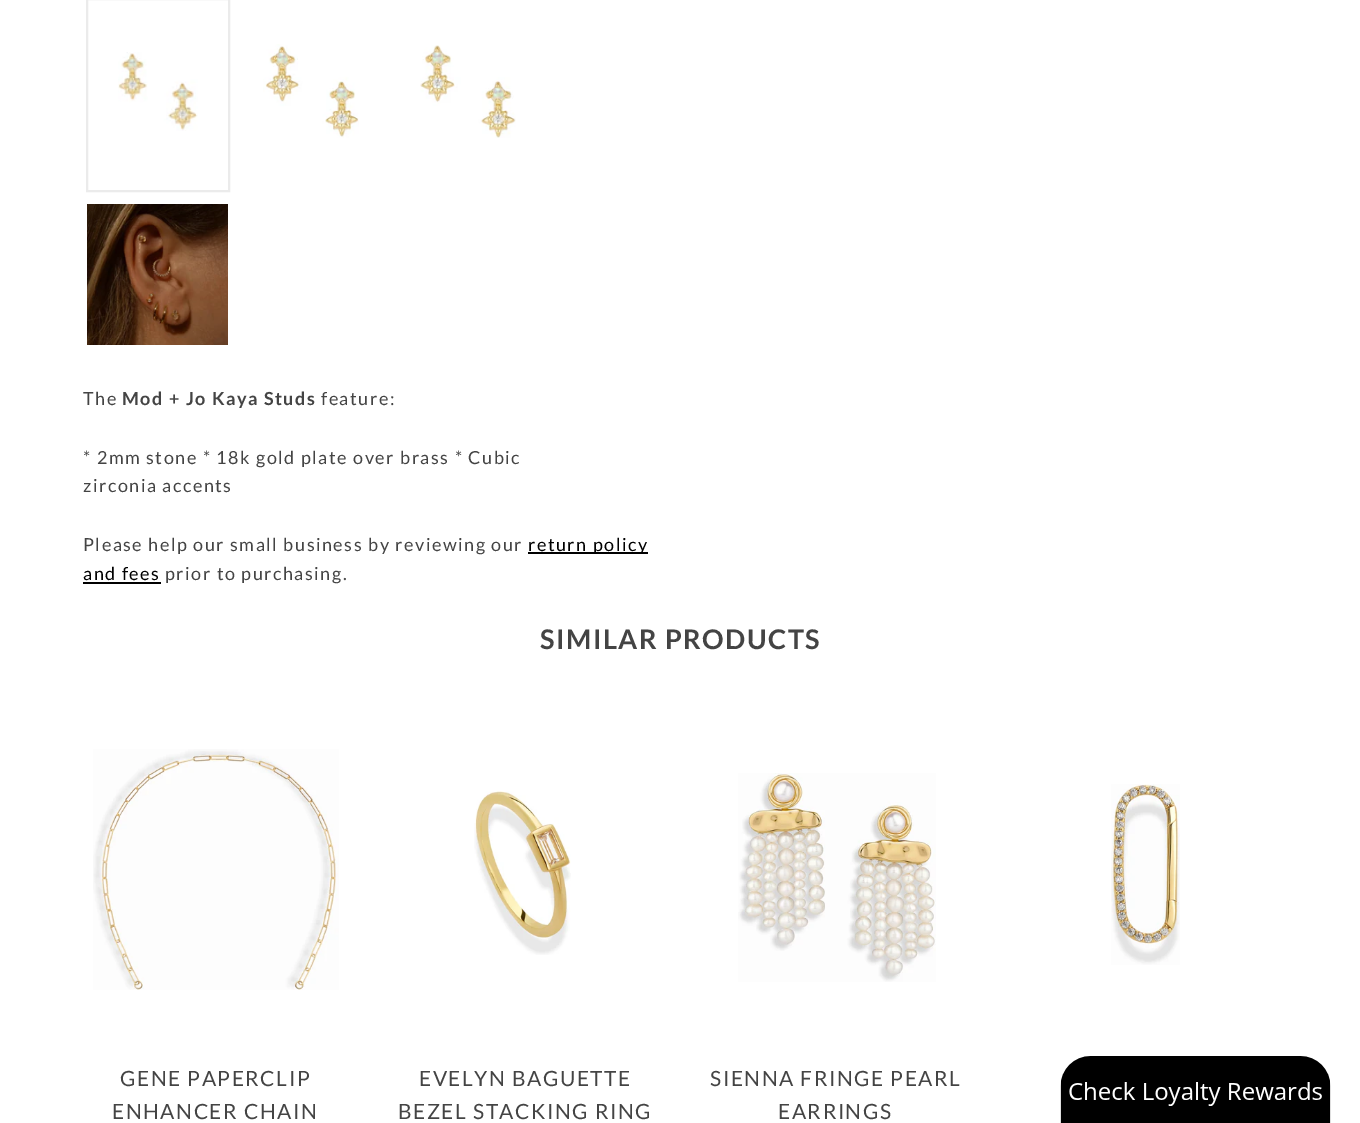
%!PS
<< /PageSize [1360 1123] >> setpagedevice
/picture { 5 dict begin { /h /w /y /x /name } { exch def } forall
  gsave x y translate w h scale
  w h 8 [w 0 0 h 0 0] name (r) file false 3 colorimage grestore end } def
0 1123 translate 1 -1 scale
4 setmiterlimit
1 setgray
0 0 1360 1123 rectfill
(img1.rgb) 118 52 80 79 picture
0.922 setgray
2 setlinewidth
87 -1 142 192 rectstroke
(img2.rgb) 263 44 96 94 picture
(img3.rgb) 420 45 96 93 picture
(img4.rgb) 87 204 141 141 picture
/Lato-Regular [18 0 0 -18 0 0] selectfont
0.267 setgray
83 405 moveto 1.5 0 (The) ashow
/Lato-Bold [18 0 0 -18 0 0] selectfont
122 405 moveto 1.5 0 (Mod + Jo Kaya Studs) ashow
/Lato-Regular [18 0 0 -18 0 0] selectfont
321 405 moveto 1.5 0 (feature:) ashow
83 464 moveto 1.5 0 (* 2mm stone * 18k gold plate over brass * Cubic) ashow
83 492 moveto 1.5 0 (zirconia accents) ashow
83 551 moveto 1.5 0 (Please help our small business by reviewing our) ashow
0 setgray
528 552 120 2 rectfill
528 551 moveto 1.5 0 (return policy) ashow
83 580 moveto 1.5 0 (and fees) ashow
83 582 78 2 rectfill
0.267 setgray
165 580 moveto 1.5 0 (prior to purchasing.) ashow
/Lato-Bold [27 0 0 -27 0 0] selectfont
540 649 moveto 1.5 0 (SIMILAR PRODUCTS) ashow
(img5.rgb) 1111 784 69 181 picture
(img6.rgb) 93 749 246 241 picture
/Lato-Regular [21 0 0 -21 0 0] selectfont
120 1086 moveto 1.5 0 (GENE PAPERCLIP) ashow
112 1119 moveto 1.5 0 (ENHANCER CHAIN) ashow
(img7.rgb) 474 791 97 164 picture
419 1086 moveto 1.5 0 (EVELYN BAGUETTE) ashow
398 1119 moveto 1.5 0 (BEZEL STACKING RING) ashow
(img8.rgb) 738 773 198 209 picture
710 1086 moveto 1.5 0 (SIENNA FRINGE PEARL) ashow
778 1119 moveto 1.5 0 (EARRINGS) ashow
(img9.rgb) 1060 1056 271 67 picture
showpage
